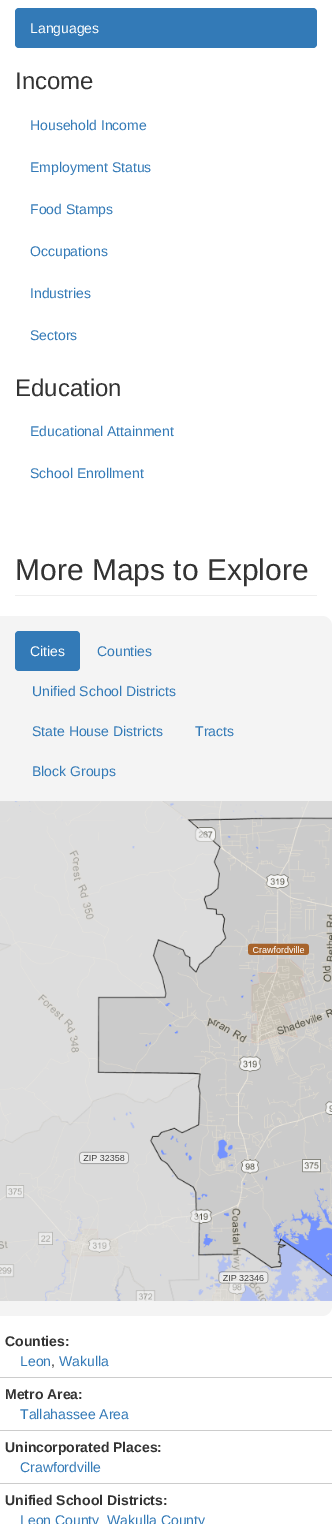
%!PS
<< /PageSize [332 1524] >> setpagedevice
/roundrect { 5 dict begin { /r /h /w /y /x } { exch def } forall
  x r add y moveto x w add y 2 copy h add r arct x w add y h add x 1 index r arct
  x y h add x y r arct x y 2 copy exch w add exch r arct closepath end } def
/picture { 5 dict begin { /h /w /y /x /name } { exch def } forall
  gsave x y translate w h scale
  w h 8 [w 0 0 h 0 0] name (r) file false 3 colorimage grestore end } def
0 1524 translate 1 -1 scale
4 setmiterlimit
1 setgray
0 0 332 1524 rectfill
0.2 0.478 0.718 setrgbcolor
15 8 302 40 4 roundrect fill
/LiberationSans-Regular [14 0 0 -14 0 0] selectfont
1 setgray
30 33 moveto (Languages) show
/LiberationSans-Regular [24 0 0 -24 0 0] selectfont
0.2 setgray
15 89 moveto (Income) show
/LiberationSans-Regular [14 0 0 -14 0 0] selectfont
0.2 0.478 0.718 setrgbcolor
30 130 moveto (Household Income) show
30 172 moveto (Employment Status) show
30 214 moveto (Food Stamps) show
30 256 moveto (Occupations) show
30 298 moveto (Industries) show
30 340 moveto (Sectors) show
/LiberationSans-Regular [24 0 0 -24 0 0] selectfont
0.2 setgray
15 396 moveto (Education) show
/LiberationSans-Regular [14 0 0 -14 0 0] selectfont
0.2 0.478 0.718 setrgbcolor
30 436 moveto (Educational Attainment) show
30 478 moveto (School Enrollment) show
0.933 setgray
15 595 302 1 rectfill
/LiberationSans-Regular [30 0 0 -30 0 0] selectfont
0.2 setgray
15 580 moveto (More Maps to Explore) show
0.957 setgray
newpath 0 616 moveto 322 616 lineto 327.5 616 332 620.5 332 626 curveto 332 1306 lineto 332 1311.5 327.5 1316 322 1316 curveto 0 1316 lineto closepath fill
0.2 0.478 0.718 setrgbcolor
15 631 65 40 4 roundrect fill
/LiberationSans-Regular [14 0 0 -14 0 0] selectfont
1 setgray
30 656 moveto (Cities) show
0.2 0.478 0.718 setrgbcolor
97 656 moveto (Counties) show
32 696 moveto (Unified School Districts) show
32 736 moveto (State House Districts) show
195 736 moveto (Tracts) show
32 776 moveto (Block Groups) show
(img1.rgb) 0 801 332 500 picture
/LiberationSans-Bold [14 0 0 -14 0 0] selectfont
0.2 setgray
5 1346 moveto (Counties:) show
/LiberationSans-Regular [14 0 0 -14 0 0] selectfont
0.2 0.478 0.718 setrgbcolor
20 1366 moveto (Leon) show
0.2 setgray
51 1366 moveto (,) show
0.2 0.478 0.718 setrgbcolor
59 1366 moveto (Wakulla) show
0.8 setgray
0 1377 332 1 rectfill
/LiberationSans-Bold [14 0 0 -14 0 0] selectfont
0.2 setgray
5 1399 moveto (Metro Area:) show
/LiberationSans-Regular [14 0 0 -14 0 0] selectfont
0.2 0.478 0.718 setrgbcolor
20 1419 moveto (Tallahassee Area) show
0.8 setgray
0 1430 332 1 rectfill
/LiberationSans-Bold [14 0 0 -14 0 0] selectfont
0.2 setgray
5 1452 moveto (Unincorporated Places:) show
/LiberationSans-Regular [14 0 0 -14 0 0] selectfont
0.2 0.478 0.718 setrgbcolor
20 1472 moveto (Crawfordville) show
0.8 setgray
0 1483 332 1 rectfill
/LiberationSans-Bold [14 0 0 -14 0 0] selectfont
0.2 setgray
5 1505 moveto (Unified School Districts:) show
/LiberationSans-Regular [14 0 0 -14 0 0] selectfont
0.2 0.478 0.718 setrgbcolor
20 1525 moveto (Leon County) show
107 1525 moveto (Wakulla County) show
showpage
